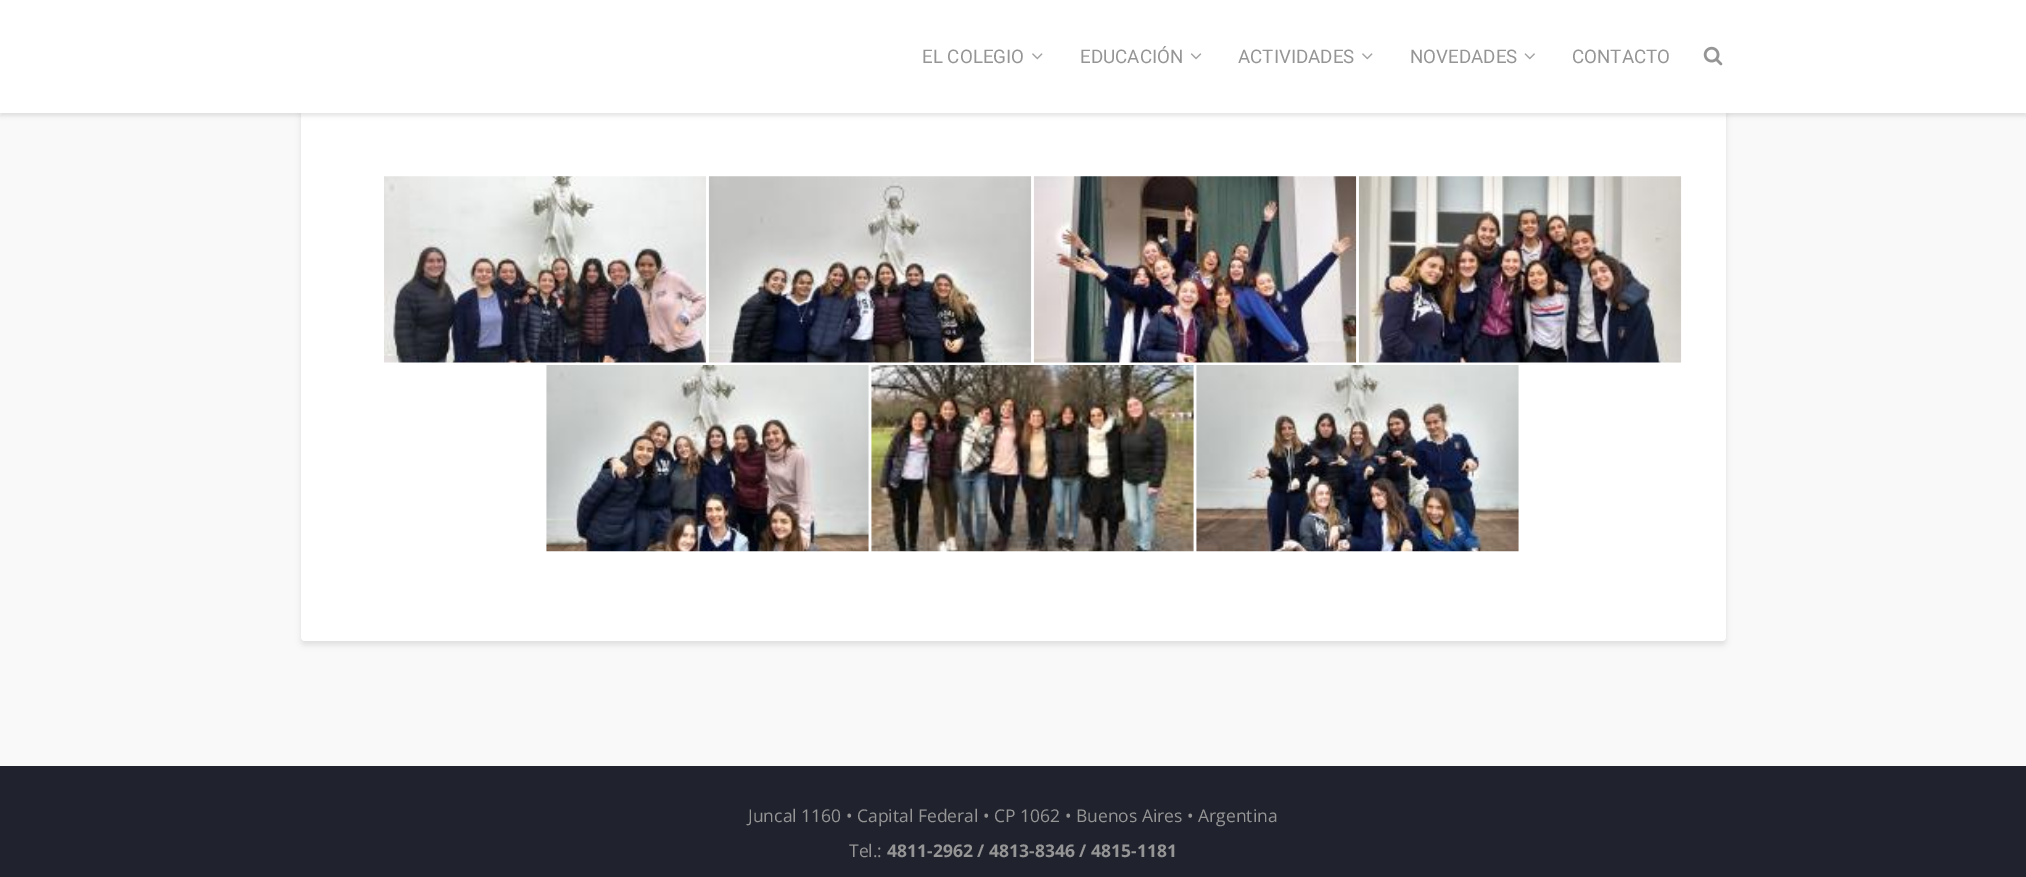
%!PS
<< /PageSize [2026 877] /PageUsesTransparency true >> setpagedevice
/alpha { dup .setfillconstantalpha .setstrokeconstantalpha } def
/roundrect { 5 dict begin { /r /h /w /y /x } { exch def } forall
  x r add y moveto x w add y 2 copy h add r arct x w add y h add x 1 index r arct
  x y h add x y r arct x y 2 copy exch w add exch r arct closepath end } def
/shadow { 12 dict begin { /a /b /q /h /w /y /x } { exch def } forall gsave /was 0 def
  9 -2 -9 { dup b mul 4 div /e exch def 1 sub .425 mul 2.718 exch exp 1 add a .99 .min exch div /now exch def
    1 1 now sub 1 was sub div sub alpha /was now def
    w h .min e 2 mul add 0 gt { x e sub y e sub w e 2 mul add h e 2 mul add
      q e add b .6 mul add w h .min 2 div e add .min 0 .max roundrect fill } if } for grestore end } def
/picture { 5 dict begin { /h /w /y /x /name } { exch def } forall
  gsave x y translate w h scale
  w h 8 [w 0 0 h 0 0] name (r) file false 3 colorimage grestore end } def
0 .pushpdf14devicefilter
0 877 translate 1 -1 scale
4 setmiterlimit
0.976 setgray
0 0 2026 877 rectfill
0 setgray
301 -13 1425 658 4 3 0.1 shadow
1 setgray
301 -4 1425 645 4 roundrect fill
(img1.rgb) 384 176 323 187 picture
(img2.rgb) 708 176 324 187 picture
(img3.rgb) 1033 176 324 187 picture
(img4.rgb) 1358 176 324 187 picture
(img5.rgb) 546 365 323 187 picture
(img6.rgb) 871 365 323 187 picture
(img7.rgb) 1196 365 323 187 picture
0 setgray
0 4 2026 112 0 2 0.1 shadow
1 setgray
0 0 2026 113 rectfill
/Roboto-Regular [18.75 0 0 -18.75 0 0] selectfont
0.584 setgray
922 63 moveto (EL COLEGIO) show
(img8.rgb) 1032 53 11 7 picture
1080 63 moveto (EDUCACIÓN) show
(img9.rgb) 1190 53 12 7 picture
1238 63 moveto (ACTIVIDADES) show
(img8.rgb) 1362 53 11 7 picture
1410 63 moveto (NOVEDADES) show
(img10.rgb) 1524 53 11 7 picture
1572 63 moveto (CONTACTO) show
(img11.rgb) 1703 46 20 20 picture
0.125 0.137 0.18 setrgbcolor
0 766 2026 111 rectfill
/OpenSans-Regular [17.5 0 0 -17.5 0 0] selectfont
0.584 setgray
748 822 moveto (Juncal 1160 • Capital Federal • CP 1062 • Buenos Aires • Argentina) show
849 857 moveto (Tel.:) show
/OpenSans-Bold [17.5 0 0 -17.5 0 0] selectfont
887 857 moveto (4811-2962 / 4813-8346 / 4815-1181) show
.poppdf14devicefilter showpage
